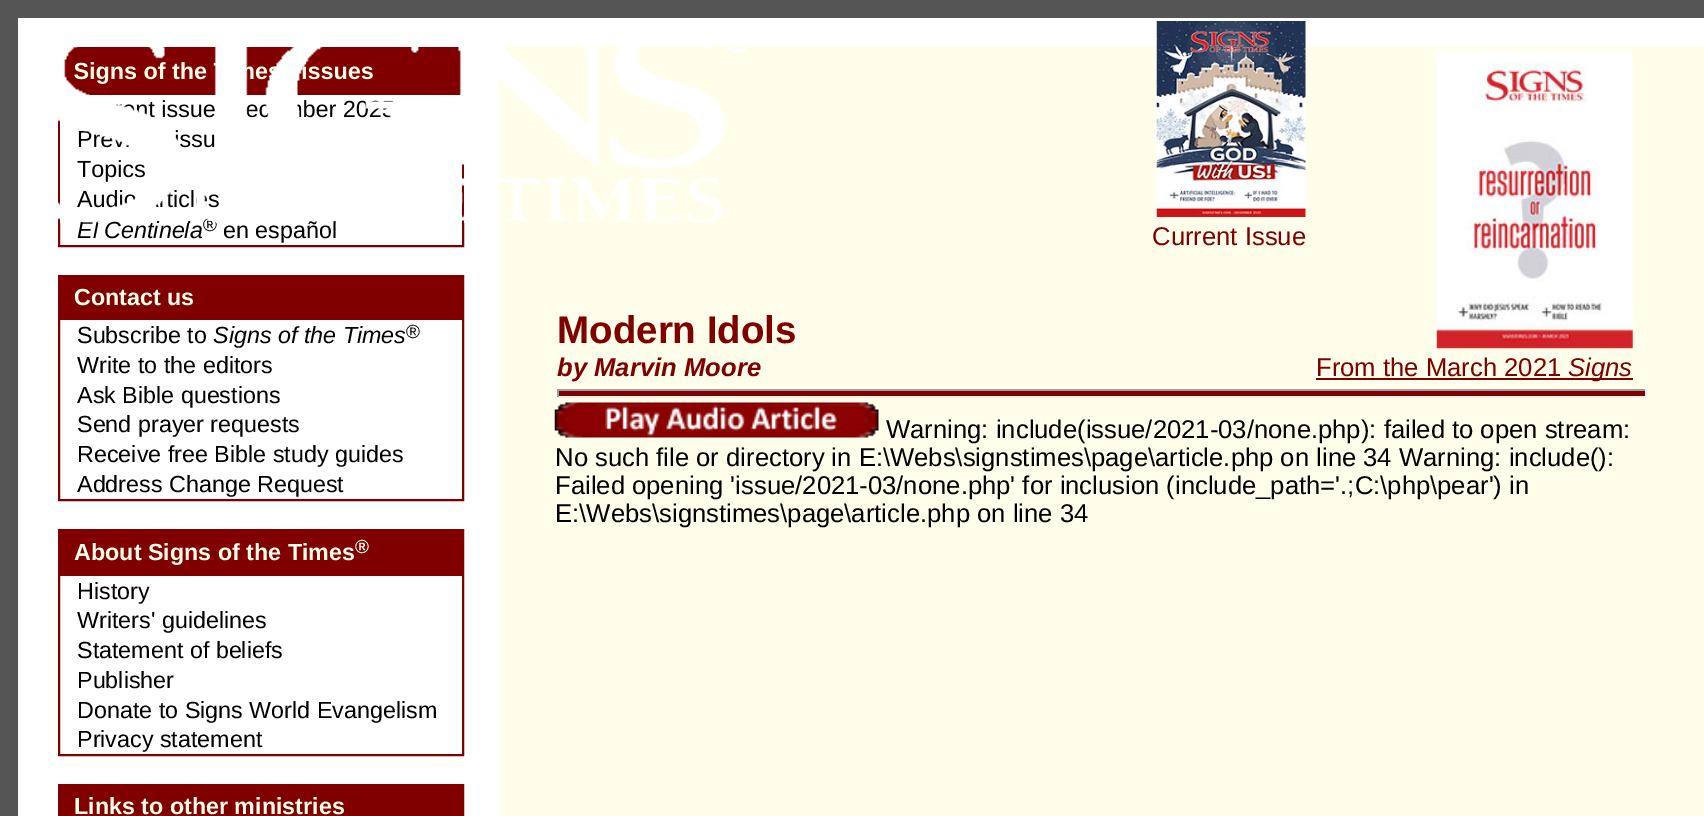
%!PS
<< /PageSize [1704 816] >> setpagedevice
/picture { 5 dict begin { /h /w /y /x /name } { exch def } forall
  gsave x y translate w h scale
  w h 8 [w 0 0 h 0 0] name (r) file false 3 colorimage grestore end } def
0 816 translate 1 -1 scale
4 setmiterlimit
0.333 setgray
0 0 1704 816 rectfill
1 setgray
18 18 1686 798 rectfill
0.502 0 0 setrgbcolor
2 setlinewidth
59 48 404 198 rectstroke
64 49 397 46 rectfill
/LiberationSans-Bold [23.3 0 0 -23.3 0 0] selectfont
1 0.996 0.918 setrgbcolor
74 79 moveto (Signs of the) show
255 79 moveto (e) show
301 79 moveto (issues) show
/LiberationSans-Regular [23.3 0 0 -23.3 0 0] selectfont
0 setgray
148 117 moveto (t issue) show
246 117 moveto (e) show
303 117 moveto (ber 2) show
77 147 moveto (Pr) show
179 147 moveto (ssu) show
77 177 moveto (Topics) show
77 207 moveto (Aud) show
173 207 moveto (icles) show
/LiberationSans-Italic [23.3 0 0 -23.3 0 0] selectfont
77 238 moveto (El Centinela) show
/LiberationSans-Regular [19 0 0 -19 0 0] selectfont
203 231 moveto (®) show
/LiberationSans-Regular [23.3 0 0 -23.3 0 0] selectfont
223 238 moveto (en español) show
1 0.996 0.918 setrgbcolor
499 46 1205 770 rectfill
(img1.rgb) 58 46 692 177 picture
0.502 0 0 setrgbcolor
59 276 404 224 rectstroke
60 277 402 43 rectfill
/LiberationSans-Bold [23.3 0 0 -23.3 0 0] selectfont
1 0.996 0.918 setrgbcolor
74 305 moveto (Contact us) show
/LiberationSans-Regular [23.3 0 0 -23.3 0 0] selectfont
0 setgray
77 343 moveto (Subscribe to) show
/LiberationSans-Italic [23.3 0 0 -23.3 0 0] selectfont
213 343 moveto (Signs of the Times) show
/LiberationSans-Regular [19 0 0 -19 0 0] selectfont
406 338 moveto (®) show
/LiberationSans-Regular [23.3 0 0 -23.3 0 0] selectfont
77 373 moveto (Write to the editors) show
77 403 moveto (Ask Bible questions) show
77 432 moveto (Send prayer requests) show
77 462 moveto (Receive free Bible study guides) show
77 492 moveto (Address Change Request) show
0.502 0 0 setrgbcolor
59 530 404 225 rectstroke
60 531 402 45 rectfill
/LiberationSans-Bold [23.3 0 0 -23.3 0 0] selectfont
1 0.996 0.918 setrgbcolor
74 560 moveto (About Signs of the Times) show
/LiberationSans-Bold [19 0 0 -19 0 0] selectfont
355 553 moveto (®) show
/LiberationSans-Regular [23.3 0 0 -23.3 0 0] selectfont
0 setgray
77 599 moveto (History) show
77 628 moveto (Writers' guidelines) show
77 658 moveto (Statement of beliefs) show
77 688 moveto (Publisher) show
77 718 moveto (Donate to Signs World Evangelism) show
77 747 moveto (Privacy statement) show
0.502 0 0 setrgbcolor
59 785 404 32 rectstroke
60 786 402 30 rectfill
/LiberationSans-Bold [23.3 0 0 -23.3 0 0] selectfont
1 0.996 0.918 setrgbcolor
74 814 moveto (Links to other ministries) show
/LiberationSans-Bold [38.5 0 0 -38.5 0 0] selectfont
0.502 0 0 setrgbcolor
557 343 moveto (Modern Idols) show
/LiberationSans-BoldItalic [25.65 0 0 -25.65 0 0] selectfont
557 376 moveto (by Marvin Moore) show
(img2.rgb) 1436 50 197 299 picture
/LiberationSans-Regular [25.65 0 0 -25.65 0 0] selectfont
1316 376 moveto (From the March 2021) show
1316 378 317 2 rectfill
/LiberationSans-Italic [25.65 0 0 -25.65 0 0] selectfont
1568 376 moveto (Signs) show
557 391 1090 5 rectfill
0.624 setgray
557 389 1090 2 rectfill
0.933 setgray
1645 389 2 8 rectfill
557 396 1090 2 rectfill
0.624 setgray
557 389 2 8 rectfill
(img3.rgb) 554 402 325 36 picture
/LiberationSans-Regular [25.65 0 0 -25.65 0 0] selectfont
0 setgray
886 438 moveto (Warning: include\(issue/2021-03/none.php\): failed to open stream:) show
555 466 moveto (No such file or directory in E:\\Webs\\signstimes\\page\\article.php on line 34 Warning: include\(\):) show
555 494 moveto (Failed opening 'issue/2021-03/none.php' for inclusion \(include_path='.;C:\\php\\pear'\) in) show
555 522 moveto (E:\\Webs\\signstimes\\page\\article.php on line 34) show
(img4.rgb) 1156 21 150 196 picture
0.502 0 0 setrgbcolor
1152 245 moveto (Current Issue) show
showpage
